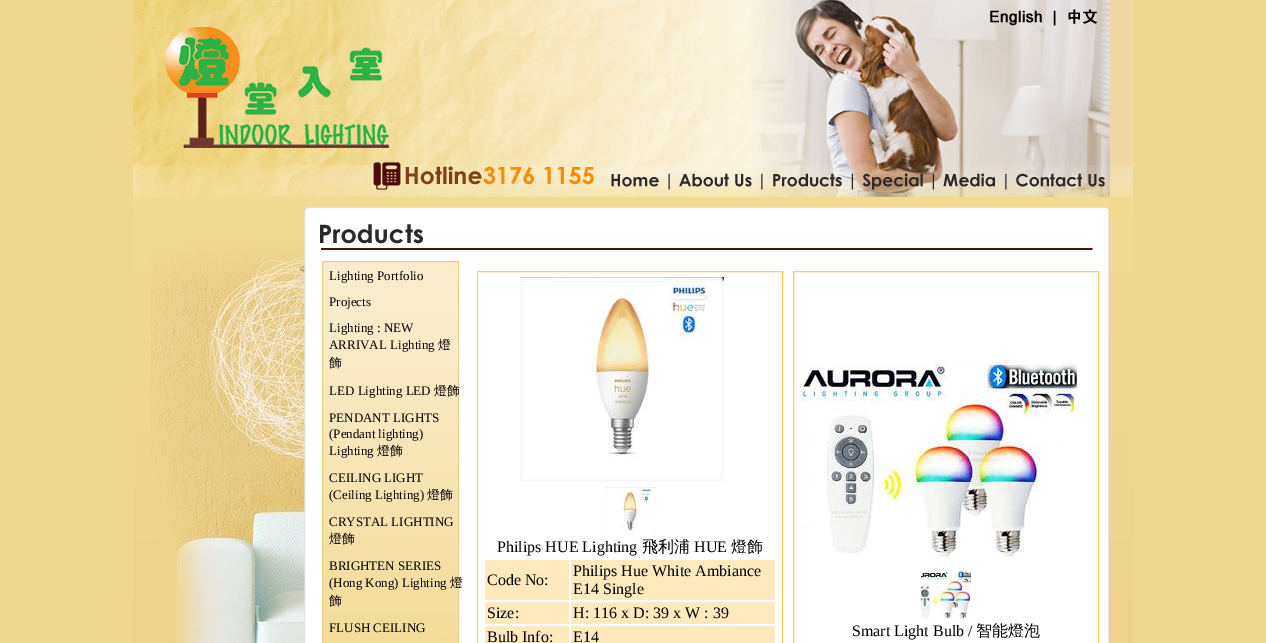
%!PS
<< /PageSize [1266 643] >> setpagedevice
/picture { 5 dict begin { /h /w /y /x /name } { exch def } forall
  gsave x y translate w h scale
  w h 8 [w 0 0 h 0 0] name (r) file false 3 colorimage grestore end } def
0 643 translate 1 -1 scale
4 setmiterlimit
0.937 0.843 0.561 setrgbcolor
0 0 1266 643 rectfill
(img1.rgb) 133 0 1000 643 picture
(img2.rgb) 320 224 774 37 picture
(img3.rgb) 323 262 135 381 picture
0.922 0.816 0.537 setrgbcolor
322.5 261.5 136 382 rectstroke
/LiberationSerif-Regular [13 0 0 -13 0 0] selectfont
0 setgray
329 280 moveto (Lighting Portfolio) show
329 306 moveto (Projects) show
329 332 moveto (Lighting : NEW) show
329 349 moveto (ARRIVAL Lighting) show
/WenQuanYiZenHei-Medium [13 0 0 -13 0 0] selectfont
438 349 moveto (燈) show
329 367 moveto (飾) show
/LiberationSerif-Regular [13 0 0 -13 0 0] selectfont
329 395 moveto (LED Lighting LED) show
/WenQuanYiZenHei-Medium [13 0 0 -13 0 0] selectfont
434 395 moveto (燈飾) show
/LiberationSerif-Regular [13 0 0 -13 0 0] selectfont
329 422 moveto (PENDANT LIGHTS) show
329 438 moveto (\(Pendant lighting\)) show
329 455 moveto (Lighting) show
/WenQuanYiZenHei-Medium [13 0 0 -13 0 0] selectfont
377 455 moveto (燈飾) show
/LiberationSerif-Regular [13 0 0 -13 0 0] selectfont
329 482 moveto (CEILING LIGHT) show
329 499 moveto (\(Ceiling Lighting\)) show
/WenQuanYiZenHei-Medium [13 0 0 -13 0 0] selectfont
427 499 moveto (燈飾) show
/LiberationSerif-Regular [13 0 0 -13 0 0] selectfont
329 526 moveto (CRYSTAL LIGHTING) show
/WenQuanYiZenHei-Medium [13 0 0 -13 0 0] selectfont
329 543 moveto (燈飾) show
/LiberationSerif-Regular [13 0 0 -13 0 0] selectfont
329 570 moveto (BRIGHTEN SERIES) show
329 587 moveto (\(Hong Kong\) Lighting) show
/WenQuanYiZenHei-Medium [13 0 0 -13 0 0] selectfont
450 587 moveto (燈) show
329 605 moveto (飾) show
/LiberationSerif-Regular [13 0 0 -13 0 0] selectfont
329 632 moveto (FLUSH CEILING) show
1 0.8 0.4 setrgbcolor
477.5 271.5 305 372 rectstroke
(img4.rgb) 520 277 204 205 picture
(img5.rgb) 605 487 50 50 picture
/LiberationSerif-Regular [16 0 0 -16 0 0] selectfont
0 setgray
497 552 moveto (Philips HUE Lighting) show
/WenQuanYiZenHei-Medium [16 0 0 -16 0 0] selectfont
642 552 moveto (飛利浦) show
/LiberationSerif-Regular [16 0 0 -16 0 0] selectfont
694 552 moveto (HUE) show
/WenQuanYiZenHei-Medium [16 0 0 -16 0 0] selectfont
731 552 moveto (燈飾) show
1 0.914 0.741 setrgbcolor
485 560 84 40 rectfill
/LiberationSerif-Regular [16 0 0 -16 0 0] selectfont
0 setgray
487 585 moveto (Code No:) show
1 0.914 0.741 setrgbcolor
571 560 204 40 rectfill
0 setgray
573 576 moveto (Philips Hue White Ambiance) show
573 594 moveto (E14 Single) show
1 0.914 0.741 setrgbcolor
485 602 84 22 rectfill
0 setgray
487 618 moveto (Size:) show
1 0.914 0.741 setrgbcolor
571 602 204 22 rectfill
0 setgray
573 618 moveto (H: 116 x D: 39 x W : 39) show
1 0.914 0.741 setrgbcolor
485 626 84 17 rectfill
0 setgray
487 642 moveto (Bulb Info:) show
1 0.914 0.741 setrgbcolor
571 626 204 17 rectfill
0 setgray
573 642 moveto (E14) show
1 0.8 0.4 setrgbcolor
793.5 271.5 305 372 rectstroke
(img6.rgb) 799 362 278 195 picture
(img7.rgb) 921 571 50 48 picture
0 setgray
852 636 moveto (Smart Light Bulb /) show
/WenQuanYiZenHei-Medium [16 0 0 -16 0 0] selectfont
976 636 moveto (智能燈泡) show
showpage
